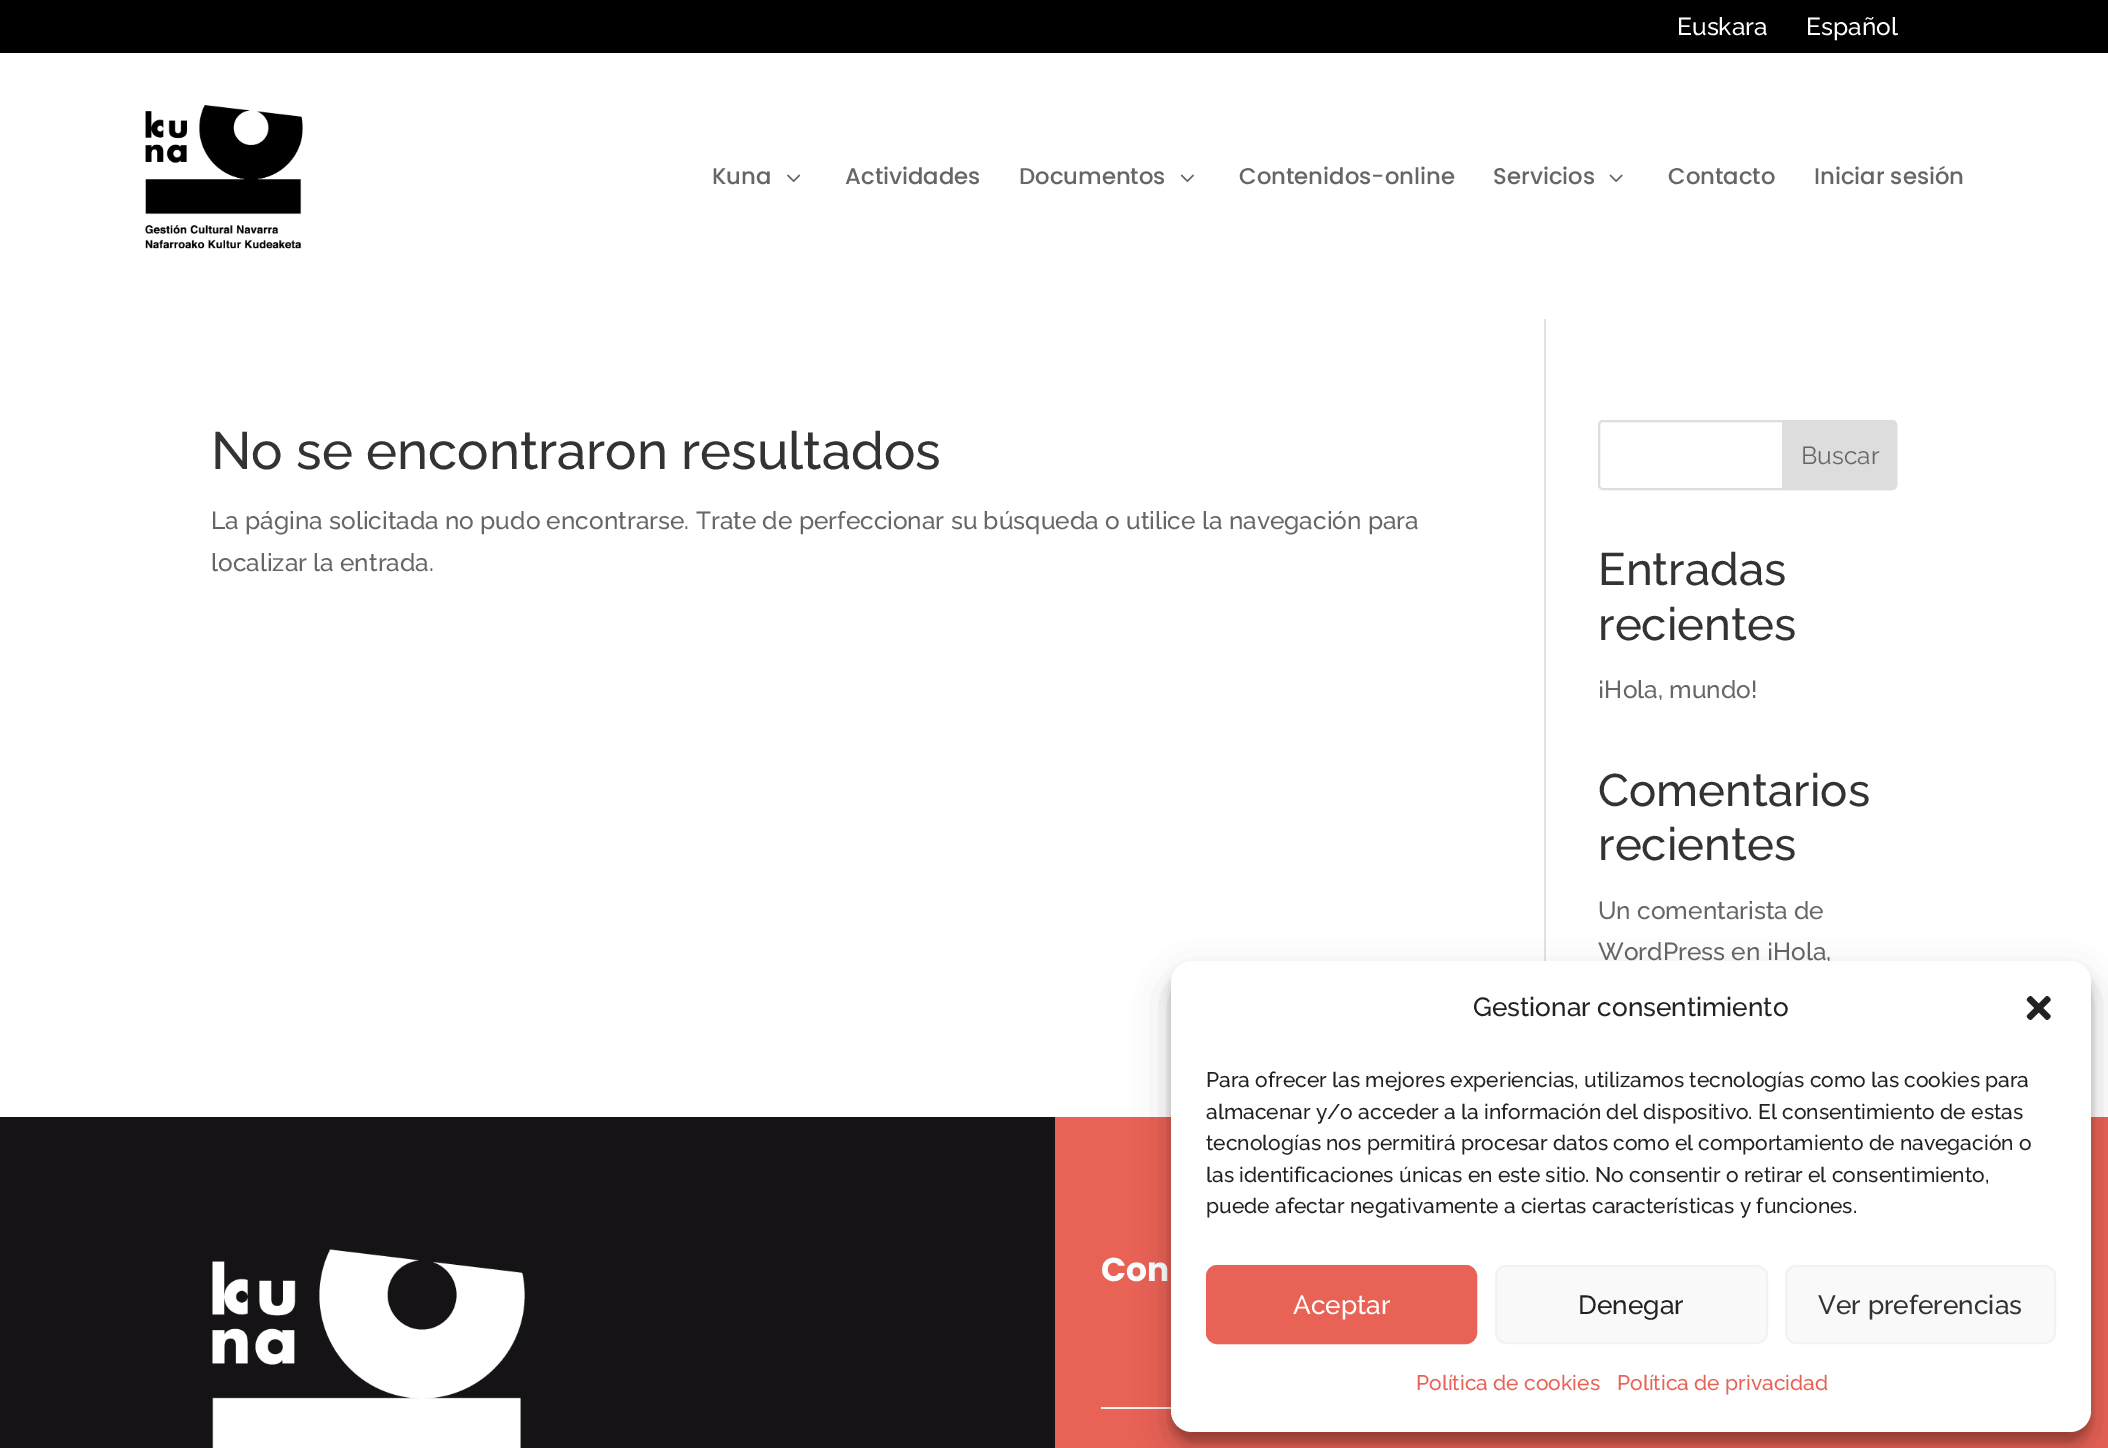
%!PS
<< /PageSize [2108 1448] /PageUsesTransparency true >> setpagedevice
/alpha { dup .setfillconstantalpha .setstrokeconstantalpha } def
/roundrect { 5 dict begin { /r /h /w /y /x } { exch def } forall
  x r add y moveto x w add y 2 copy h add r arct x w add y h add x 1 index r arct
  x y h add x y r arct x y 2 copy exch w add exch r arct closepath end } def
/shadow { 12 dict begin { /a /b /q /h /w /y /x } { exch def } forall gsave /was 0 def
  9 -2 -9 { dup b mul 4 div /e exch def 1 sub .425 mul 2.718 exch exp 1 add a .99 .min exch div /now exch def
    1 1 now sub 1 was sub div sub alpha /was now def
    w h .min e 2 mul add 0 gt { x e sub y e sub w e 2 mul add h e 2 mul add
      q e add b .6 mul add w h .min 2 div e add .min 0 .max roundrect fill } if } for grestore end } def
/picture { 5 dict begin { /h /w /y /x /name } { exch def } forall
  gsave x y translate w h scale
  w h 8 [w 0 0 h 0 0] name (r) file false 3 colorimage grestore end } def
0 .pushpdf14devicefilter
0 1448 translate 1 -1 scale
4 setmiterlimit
1 setgray
0 0 2108 1448 rectfill
0 setgray
0 0 2108 53 rectfill
/Raleway-Medium [24.5 0 0 -24.5 0 0] selectfont
1 setgray
1677 35 moveto (Euskara) show
1806 35 moveto (Español) show
(img1.rgb) 145 105 158 144 picture
/Poppins-Medium [22.75 0 0 -22.75 0 0] selectfont
0.4 setgray
712 184 moveto (Kuna) show
(img2.rgb) 787 174 14 8 picture
845 184 moveto (Actividades) show
1019 184 moveto (Documentos) show
(img3.rgb) 1180 174 14 8 picture
1239 184 moveto (Contenidos-online) show
1493 184 moveto (Servicios) show
(img4.rgb) 1609 174 14 8 picture
1668 184 moveto (Contacto) show
1814 184 moveto (Iniciar sesión) show
0.886 setgray
1544 319 2 642 rectfill
/Raleway-Medium [52.5 0 0 -52.5 0 0] selectfont
0.2 setgray
211 469 moveto (No se encontraron resultados) show
/Raleway-Medium [24.5 0 0 -24.5 0 0] selectfont
0.4 setgray
211 529 moveto (La página solicitada no pudo encontrarse. Trate de perfeccionar su búsqueda o utilice la navegación para) show
211 571 moveto (localizar la entrada.) show
0.867 setgray
2 setlinewidth
1599 421 297 68 4 roundrect stroke
newpath 1783 421 moveto 1892 421 lineto 1894 421 1896 423 1896 425 curveto 1896 485 lineto 1896 487 1894 489 1892 489 curveto 1783 489 lineto closepath gsave fill grestore
stroke
/Raleway-Regular [24.5 0 0 -24.5 0 0] selectfont
0.4 setgray
1801 464 moveto (Buscar) show
/Raleway-Medium [45.5 0 0 -45.5 0 0] selectfont
0.2 setgray
1598 585 moveto (Entradas) show
1598 640 moveto (recientes) show
/Raleway-Medium [24.5 0 0 -24.5 0 0] selectfont
0.4 setgray
1598 698 moveto (¡Hola, mundo!) show
/Raleway-Medium [45.5 0 0 -45.5 0 0] selectfont
0.2 setgray
1598 806 moveto (Comentarios) show
1598 860 moveto (recientes) show
/Raleway-Medium [24.5 0 0 -24.5 0 0] selectfont
0.4 setgray
1598 919 moveto (Un comentarista de) show
1598 960 moveto (WordPress en ¡Hola,) show
0.082 0.075 0.086 setrgbcolor
0 1117 1055 331 rectfill
0.914 0.384 0.337 setrgbcolor
1055 1117 1053 331 rectfill
(img5.rgb) 212 1249 313 199 picture
/Poppins-Bold [33 0 0 -33 0 0] selectfont
1 setgray
1101 1281 moveto (Con) show
0.941 setgray
1101 1407 70 2 rectfill
0 setgray
1171 971 920 471 21 5 0.23 shadow
1171 978 920 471 21 17.5 0.19 shadow
1 setgray
1171 961 920 471 21 roundrect fill
/Raleway-Medium [26.25 0 0 -26.25 0 0] selectfont
0.133 setgray
1473 1016 moveto (Gestionar consentimiento) show
(img6.rgb) 2026 996 25 24 picture
/Raleway-Medium [21 0 0 -21 0 0] selectfont
1206 1087 moveto (Para ofrecer las mejores experiencias, utilizamos tecnologías como las cookies para) show
1206 1119 moveto (almacenar y/o acceder a la información del dispositivo. El consentimiento de estas) show
1206 1150 moveto (tecnologías nos permitirá procesar datos como el comportamiento de navegación o) show
1206 1182 moveto (las identificaciones únicas en este sitio. No consentir o retirar el consentimiento,) show
1206 1213 moveto (puede afectar negativamente a ciertas características y funciones.) show
0.914 0.384 0.337 setrgbcolor
1207 1266 269 77 10 roundrect gsave fill grestore
stroke
/Raleway-Medium [26.25 0 0 -26.25 0 0] selectfont
1 setgray
1293 1314 moveto (Aceptar) show
0.976 setgray
1496 1266 271 77 10 roundrect gsave fill grestore
0.949 setgray
stroke
0.133 setgray
1578 1314 moveto (Denegar) show
0.976 setgray
1786 1266 269 77 10 roundrect gsave fill grestore
0.949 setgray
stroke
0.2 setgray
1818 1314 moveto (Ver preferencias) show
/Raleway-Medium [21 0 0 -21 0 0] selectfont
0.914 0.384 0.337 setrgbcolor
1416 1390 moveto (Política de cookies) show
1617 1390 moveto (Política de privacidad) show
.poppdf14devicefilter showpage
